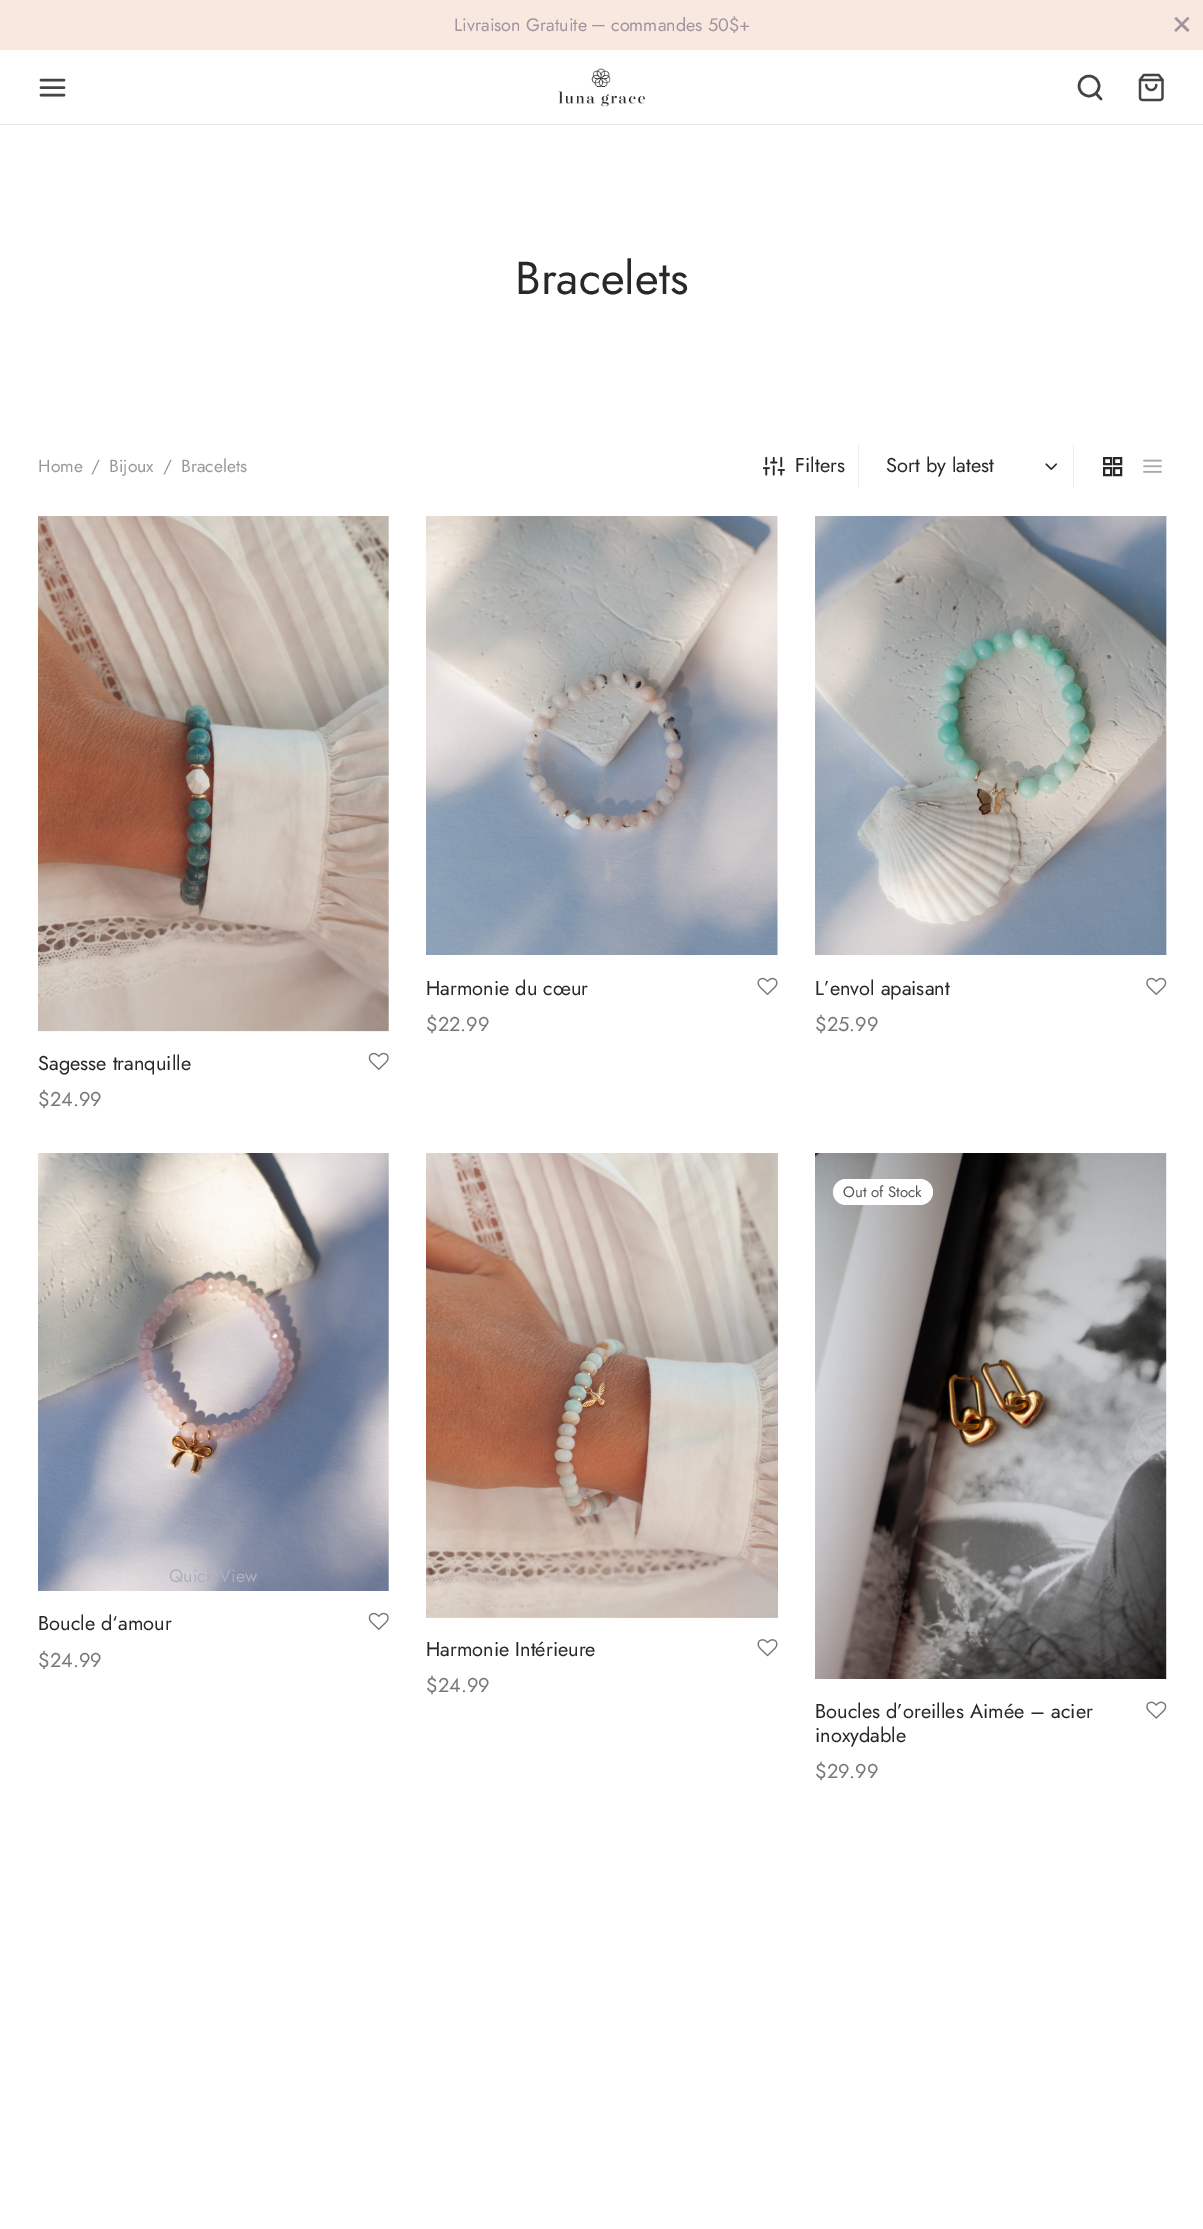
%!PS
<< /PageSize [1203 2229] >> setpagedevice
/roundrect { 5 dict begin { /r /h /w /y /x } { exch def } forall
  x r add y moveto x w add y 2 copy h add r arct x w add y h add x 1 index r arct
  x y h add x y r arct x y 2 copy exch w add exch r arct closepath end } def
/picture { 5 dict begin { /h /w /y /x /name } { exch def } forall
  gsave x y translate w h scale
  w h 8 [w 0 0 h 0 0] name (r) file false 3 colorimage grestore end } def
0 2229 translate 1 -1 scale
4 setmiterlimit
1 setgray
0 0 1203 2229 rectfill
0.976 0.91 0.878 setrgbcolor
0 0 1203 50 rectfill
/Jost-Regular [18 0 0 -18 0 0] selectfont
0.627 0.58 0.616 setrgbcolor
454 31 moveto (Livraison Gratuite) show
/LiberationSerif-Regular [18 0 0 -18 0 0] selectfont
592 31 moveto (─) show
/Jost-Regular [18 0 0 -18 0 0] selectfont
611 31 moveto (commandes 50$+) show
newpath 1176 17 moveto 1189.5 30 lineto 1187.5 32 lineto 1174.5 18.5 lineto closepath fill
newpath 1174.5 30 moveto 1187.5 17 lineto 1189.5 18.5 lineto 1176 32 lineto closepath fill
0.267 setgray
2.5 setlinewidth
1 setlinecap
1 setlinejoin
newpath 41 87.5 moveto 64 87.5 lineto 41 80 moveto 64 80 lineto 41 95 moveto 64 95 lineto stroke
(img1.rgb) 558 68 87 39 picture
0 setlinecap
0 setlinejoin
newpath 1089 86 10 0 360 arc closepath stroke
1 setlinecap
1 setlinejoin
newpath 1101 99 moveto 1096 93.5 lineto stroke
(img2.rgb) 1138 73 26 29 picture
0.902 setgray
0 124 1203 1 rectfill
/Jost-Regular [46 0 0 -46 0 0] selectfont
0.157 setgray
515 294 moveto (Bracelets) show
/Jost-Regular [17.5 0 0 -17.5 0 0] selectfont
0.6 setgray
38 472 moveto (Home) show
91 472 moveto (/) show
109 472 moveto (Bijoux) show
163 472 moveto (/) show
181 472 moveto (Bracelets) show
0.933 setgray
858 445 1 43 rectfill
(img3.rgb) 763 456 22 20 picture
/Jost-Regular [20 0 0 -20 0 0] selectfont
0.157 setgray
795 472 moveto (Filters) show
886 472 moveto (Sort by latest) show
(img4.rgb) 1045 463 12 7 picture
0.933 setgray
1073 445 1 43 rectfill
0.157 setgray
2 setlinewidth
0 setlinecap
0 setlinejoin
1104 458 7 6 rectstroke
1114 458 7 6 rectstroke
1104 468 7 7 rectstroke
1114 468 7 7 rectstroke
(img5.rgb) 1143 459 19 14 picture
(img6.rgb) 426 516 352 439 picture
426 995 moveto (Harmonie du cœur) show
(img7.rgb) 757 977 21 18 picture
0.467 setgray
426 1031 moveto ($22.99) show
(img8.rgb) 815 516 352 439 picture
0.157 setgray
815 995 moveto (L’envol apaisant) show
(img9.rgb) 1146 977 21 18 picture
0.467 setgray
815 1031 moveto ($25.99) show
(img10.rgb) 38 516 351 516 picture
0.157 setgray
38 1070 moveto (Sagesse tranquille) show
(img11.rgb) 368 1052 21 18 picture
0.467 setgray
38 1106 moveto ($24.99) show
(img12.rgb) 38 1153 351 438 picture
/Jost-Regular [18 0 0 -18 0 0] selectfont
0.682 0.686 0.741 setrgbcolor
169 1582 moveto (Quick View) show
/Jost-Regular [20 0 0 -20 0 0] selectfont
0.157 setgray
38 1630 moveto (Boucle d‘amour) show
(img11.rgb) 368 1612 21 18 picture
0.467 setgray
38 1667 moveto ($24.99) show
(img13.rgb) 426 1153 352 465 picture
0.157 setgray
426 1656 moveto (Harmonie Intérieure) show
(img14.rgb) 757 1639 21 18 picture
0.467 setgray
426 1692 moveto ($24.99) show
(img15.rgb) 815 1153 352 526 picture
1 setgray
833 1179 100 26 13 roundrect fill
/Jost-Regular [15 0 0 -15 0 0] selectfont
0.345 setgray
843 1197 moveto (Out of Stock) show
/Jost-Regular [20 0 0 -20 0 0] selectfont
0.157 setgray
815 1718 moveto (Boucles d’oreilles Aimée – acier) show
815 1742 moveto (inoxydable) show
(img16.rgb) 1146 1701 21 18 picture
0.467 setgray
815 1778 moveto ($29.99) show
showpage
